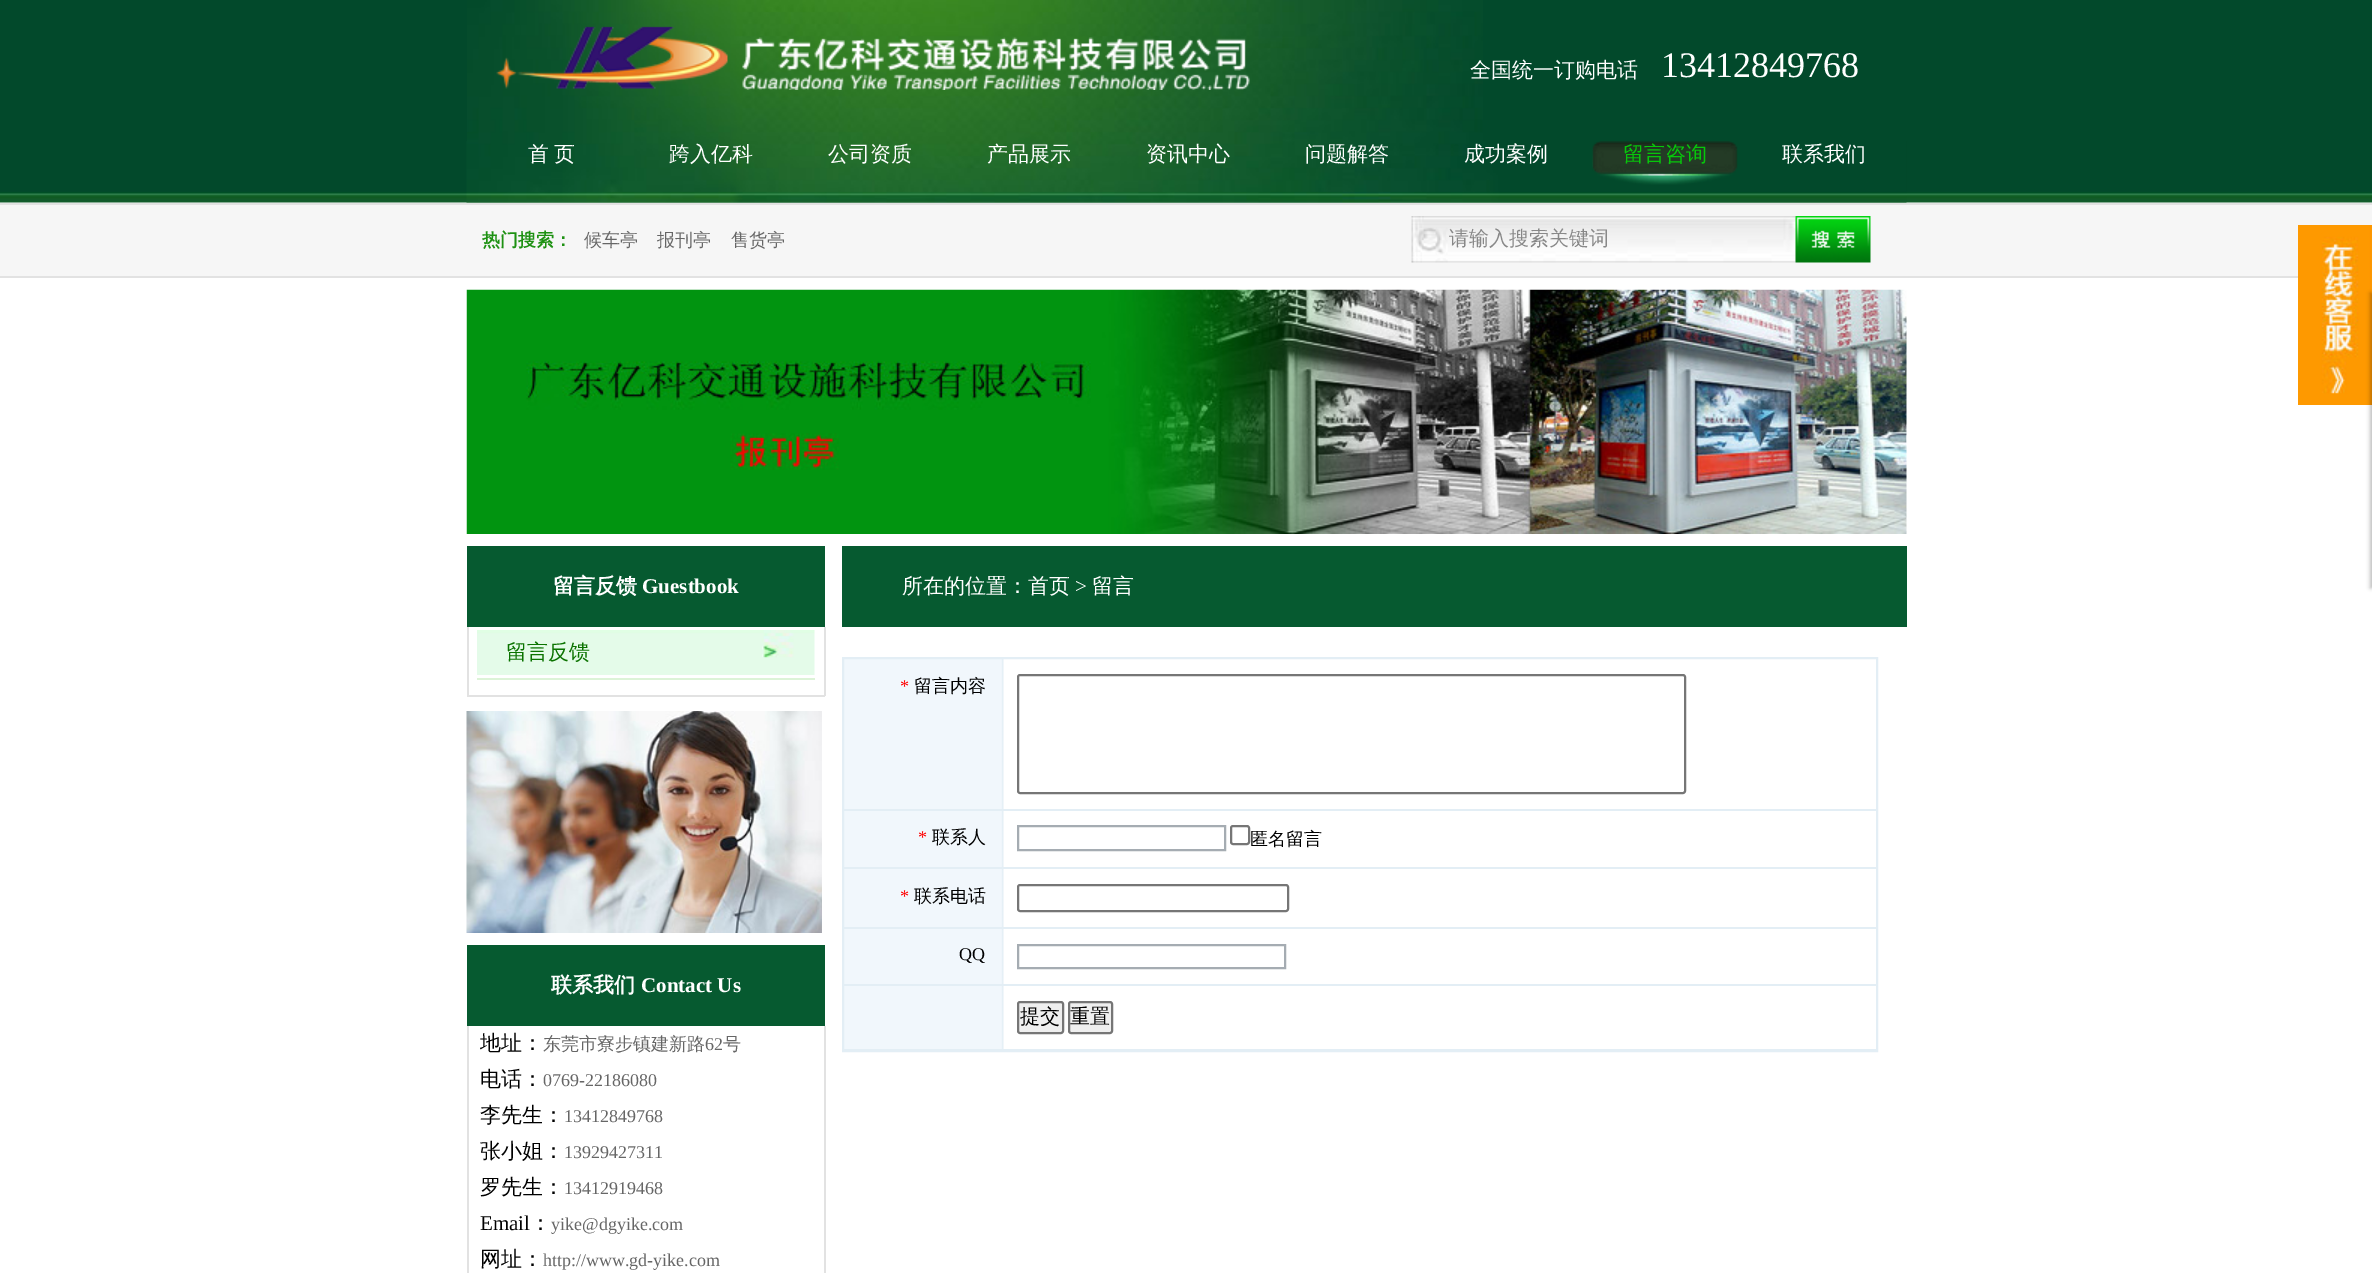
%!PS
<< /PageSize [2372 1273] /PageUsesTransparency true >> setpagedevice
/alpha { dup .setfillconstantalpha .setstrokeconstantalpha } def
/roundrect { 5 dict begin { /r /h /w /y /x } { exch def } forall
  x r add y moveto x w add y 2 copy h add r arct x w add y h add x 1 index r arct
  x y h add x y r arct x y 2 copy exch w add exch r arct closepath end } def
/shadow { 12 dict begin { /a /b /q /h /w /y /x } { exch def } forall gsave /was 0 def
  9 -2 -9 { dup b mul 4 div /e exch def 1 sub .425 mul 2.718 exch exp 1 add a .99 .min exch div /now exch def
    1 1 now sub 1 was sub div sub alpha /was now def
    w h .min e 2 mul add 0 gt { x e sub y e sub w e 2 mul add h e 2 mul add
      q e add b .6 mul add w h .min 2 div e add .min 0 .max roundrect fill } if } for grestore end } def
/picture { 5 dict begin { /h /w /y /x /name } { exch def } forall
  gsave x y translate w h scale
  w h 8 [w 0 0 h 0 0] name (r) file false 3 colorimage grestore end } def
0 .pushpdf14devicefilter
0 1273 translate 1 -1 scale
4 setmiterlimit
1 setgray
0 0 2372 1273 rectfill
(img1.rgb) 0 0 2372 203 picture
(img2.rgb) 467 0 1016 141 picture
(img3.rgb) 496 26 754 64 picture
/WenQuanYiZenHei-Medium [21 0 0 -21 0 0] selectfont
1470 77 moveto (全国统一订购电话) show
/LiberationSerif-Regular [36 0 0 -36 0 0] selectfont
1661 77 moveto (13412849768) show
(img4.rgb) 466 141 1441 62 picture
/WenQuanYiZenHei-Medium [21 0 0 -21 0 0] selectfont
528 161 moveto -1 0 32 (首 页) widthshow
669 161 moveto (跨入亿科) show
828 161 moveto (公司资质) show
987 161 moveto (产品展示) show
1146 161 moveto (资讯中心) show
1305 161 moveto (问题解答) show
1464 161 moveto (成功案例) show
(img5.rgb) 1592 141 146 44 picture
0.024 0.78 0.039 setrgbcolor
1623 161 moveto (留言咨询) show
1 setgray
1782 161 moveto (联系我们) show
0.965 setgray
0 205 2372 71 rectfill
0.886 setgray
0 203 2372 2 rectfill
0 276 2298 2 rectfill
/WenQuanYiZenHei-Bold [18 0 0 -18 0 0] selectfont
0.114 0.569 0.071 setrgbcolor
482 246 moveto (热门搜索：) show
/WenQuanYiZenHei-Medium [18 0 0 -18 0 0] selectfont
0.4 setgray
584 246 moveto (候车亭) show
657 246 moveto (报刊亭) show
731 246 moveto (售货亭) show
(img6.rgb) 1411 216 385 47 picture
/WenQuanYiZenHei-Medium [20 0 0 -20 0 0] selectfont
0.533 setgray
1449 245 moveto (请输入搜索关键词) show
(img7.rgb) 1795 216 76 47 picture
(img8.rgb) 466 289 1441 245 picture
(img9.rgb) 2298 225 74 180 picture
0 setgray
2370 293 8 295 0 2 0.25 shadow
0.024 0.353 0.188 setrgbcolor
467 546 358 81 rectfill
/WenQuanYiZenHei-Bold [21 0 0 -21 0 0] selectfont
1 setgray
553 593 moveto (留言反馈) show
/LiberationSerif-Bold [21 0 0 -21 0 0] selectfont
642 593 moveto (Guestbook) show
0.886 setgray
824 627 2 69 rectfill
467 695 358 2 rectfill
467 627 2 69 rectfill
0.863 0.953 0.843 setrgbcolor
477 678 338 2 rectfill
(img10.rgb) 477 630 338 45 picture
/WenQuanYiZenHei-Medium [21 0 0 -21 0 0] selectfont
0.043 0.451 0 setrgbcolor
506 659 moveto (留言反馈) show
(img11.rgb) 466 711 356 222 picture
0.024 0.353 0.188 setrgbcolor
467 945 358 81 rectfill
/WenQuanYiZenHei-Bold [21 0 0 -21 0 0] selectfont
1 setgray
551 992 moveto (联系我们) show
/LiberationSerif-Bold [21 0 0 -21 0 0] selectfont
641 992 moveto (Contact Us) show
0.886 setgray
824 1026 2 247 rectfill
467 1026 2 247 rectfill
/WenQuanYiZenHei-Medium [21 0 0 -21 0 0] selectfont
0 setgray
480 1050 moveto (地址：) show
/WenQuanYiZenHei-Medium [18 0 0 -18 0 0] selectfont
0.4 setgray
543 1050 moveto (东莞市寮步镇建新路) show
/LiberationSerif-Regular [18 0 0 -18 0 0] selectfont
705 1050 moveto (62) show
/WenQuanYiZenHei-Medium [18 0 0 -18 0 0] selectfont
723 1050 moveto (号) show
/WenQuanYiZenHei-Medium [21 0 0 -21 0 0] selectfont
0 setgray
480 1086 moveto (电话：) show
/LiberationSerif-Regular [18 0 0 -18 0 0] selectfont
0.4 setgray
543 1086 moveto (0769-22186080) show
/WenQuanYiZenHei-Medium [21 0 0 -21 0 0] selectfont
0 setgray
480 1122 moveto (李先生：) show
/LiberationSerif-Regular [18 0 0 -18 0 0] selectfont
0.4 setgray
564 1122 moveto (13412849768) show
/WenQuanYiZenHei-Medium [21 0 0 -21 0 0] selectfont
0 setgray
480 1158 moveto (张小姐：) show
/LiberationSerif-Regular [18 0 0 -18 0 0] selectfont
0.4 setgray
564 1158 moveto (13929427311) show
/WenQuanYiZenHei-Medium [21 0 0 -21 0 0] selectfont
0 setgray
480 1194 moveto (罗先生：) show
/LiberationSerif-Regular [18 0 0 -18 0 0] selectfont
0.4 setgray
564 1194 moveto (13412919468) show
/LiberationSerif-Regular [21 0 0 -21 0 0] selectfont
0 setgray
480 1230 moveto (Email) show
/WenQuanYiZenHei-Medium [21 0 0 -21 0 0] selectfont
530 1230 moveto (：) show
/LiberationSerif-Regular [18 0 0 -18 0 0] selectfont
0.4 setgray
551 1230 moveto (yike@dgyike.com) show
/WenQuanYiZenHei-Medium [21 0 0 -21 0 0] selectfont
0 setgray
480 1266 moveto (网址：) show
/LiberationSerif-Regular [18 0 0 -18 0 0] selectfont
0.4 setgray
543 1266 moveto (http://www.gd-yike.com) show
0.024 0.353 0.188 setrgbcolor
842 546 1065 81 rectfill
/WenQuanYiZenHei-Medium [21 0 0 -21 0 0] selectfont
1 setgray
902 593 moveto (所在的位置：首页) show
/LiberationSerif-Regular [21 0 0 -21 0 0] selectfont
1075 593 moveto (>) show
/WenQuanYiZenHei-Medium [21 0 0 -21 0 0] selectfont
1092 593 moveto (留言) show
(img12.rgb) 844 659 160 390 picture
0.89 0.933 0.961 setrgbcolor
2 setlinewidth
843 658 1034 393 rectstroke
843 809 1034 2 rectfill
0.463 setgray
1018 675 667 118 2 roundrect stroke
/LiberationSerif-Regular [18 0 0 -18 0 0] selectfont
1 0 0 setrgbcolor
900 692 moveto (*) show
/WenQuanYiZenHei-Medium [18 0 0 -18 0 0] selectfont
0 setgray
914 692 moveto (留言内容) show
/LiberationSerif-Regular [18 0 0 -18 0 0] selectfont
1 0 0 setrgbcolor
918 843 moveto (*) show
/WenQuanYiZenHei-Medium [18 0 0 -18 0 0] selectfont
0 setgray
932 843 moveto (联系人) show
0.89 0.933 0.961 setrgbcolor
843 867 1034 2 rectfill
0.647 0.675 0.698 setrgbcolor
1018 826 207 24 rectstroke
0.463 setgray
1231 826 18 18 2 roundrect stroke
0 setgray
1250 845 moveto (匿名留言) show
0.89 0.933 0.961 setrgbcolor
843 927 1034 2 rectfill
0.463 setgray
1018 885 270 26 2 roundrect stroke
/LiberationSerif-Regular [18 0 0 -18 0 0] selectfont
1 0 0 setrgbcolor
900 902 moveto (*) show
/WenQuanYiZenHei-Medium [18 0 0 -18 0 0] selectfont
0 setgray
914 902 moveto (联系电话) show
0.89 0.933 0.961 setrgbcolor
843 984 1034 2 rectfill
0.647 0.675 0.698 setrgbcolor
1018 945 267 23 rectstroke
/LiberationSerif-Regular [18 0 0 -18 0 0] selectfont
0 setgray
959 960 moveto (QQ) show
0.89 0.933 0.961 setrgbcolor
843 1049 1034 1 rectfill
0.937 setgray
1018 1002 45 31 2 roundrect gsave fill grestore
0.463 setgray
stroke
/WenQuanYiZenHei-Medium [20 0 0 -20 0 0] selectfont
0 setgray
1020 1023 moveto (提交) show
0.937 setgray
1069 1002 43 31 2 roundrect gsave fill grestore
0.463 setgray
stroke
0 setgray
1070 1023 moveto (重置) show
.poppdf14devicefilter showpage
